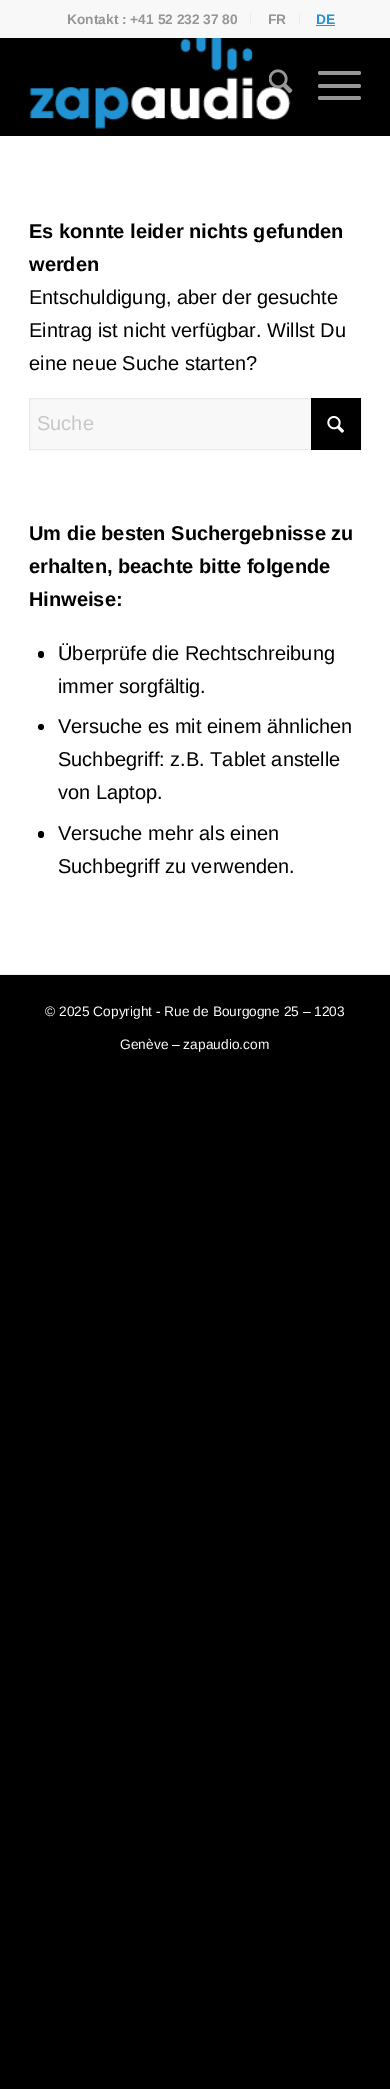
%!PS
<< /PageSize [390 2089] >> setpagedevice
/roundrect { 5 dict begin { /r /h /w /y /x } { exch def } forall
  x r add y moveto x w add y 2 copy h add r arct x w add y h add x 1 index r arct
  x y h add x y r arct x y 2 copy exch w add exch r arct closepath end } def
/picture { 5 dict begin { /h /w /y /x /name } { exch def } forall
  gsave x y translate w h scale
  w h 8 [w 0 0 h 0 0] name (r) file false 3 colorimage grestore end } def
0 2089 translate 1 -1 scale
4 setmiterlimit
0 setgray
0 0 390 2089 rectfill
0.973 setgray
0 0 390 38 rectfill
0.922 setgray
250 13 1 12 rectfill
/LiberationSans-Bold [13.75 0 0 -13.75 0 0] selectfont
0.588 setgray
67 24 moveto (Kontakt : +41 52 232 37 80) show
0.922 setgray
299 13 1 12 rectfill
0.588 setgray
268 24 moveto (FR) show
0.129 0.58 0.824 setrgbcolor
316 24 moveto (DE) show
316 25 19 1 rectfill
(img1.rgb) 29 38 262 91 picture
(img2.rgb) 269 69 24 25 picture
0.588 setgray
318 84 43 4 2 roundrect fill
318 71 43 4 2 roundrect fill
318 96 43 4 2 roundrect fill
1 setgray
0 136 390 838 rectfill
/LiberationSans-Bold [20 0 0 -20 0 0] selectfont
0 setgray
29 238 moveto (Es konnte leider nichts gefunden) show
29 271 moveto (werden) show
/LiberationSans-Regular [20 0 0 -20 0 0] selectfont
29 304 moveto (Entschuldigung, aber der gesuchte) show
29 337 moveto (Eintrag ist nicht verfügbar. Willst Du) show
29 370 moveto (eine neue Suche starten?) show
0.973 setgray
30 399 281 50 rectfill
0.922 setgray
29.5 398.5 331 51 rectstroke
0.78 setgray
37 430 moveto (Suche) show
0 setgray
311 398 50 52 rectfill
(img3.rgb) 327 416 17 17 picture
/LiberationSans-Bold [20 0 0 -20 0 0] selectfont
29 540 moveto (Um die besten Suchergebnisse zu) show
29 573 moveto (erhalten, beachte bitte folgende) show
29 606 moveto (Hinweise:) show
38 651 6 7 3 roundrect fill
/LiberationSans-Regular [20 0 0 -20 0 0] selectfont
58 660 moveto (Überprüfe die Rechtschreibung) show
58 693 moveto (immer sorgfältig.) show
newpath 41 727 3 0 360 arc closepath fill
58 733 moveto (Versuche es mit einem ähnlichen) show
58 766 moveto (Suchbegriff: z.B. Tablet anstelle) show
58 799 moveto (von Laptop.) show
38 831 6 7 3 roundrect fill
58 840 moveto (Versuche mehr als einen) show
58 873 moveto (Suchbegriff zu verwenden.) show
0.922 setgray
0 974 390 1 rectfill
/LiberationSans-Regular [13.75 0 0 -13.75 0 0] selectfont
1 setgray
45 1016 moveto (© 2025 Copyright - Rue de Bourgogne 25 – 1203) show
120 1049 moveto (Genève – zapaudio.com) show
showpage
